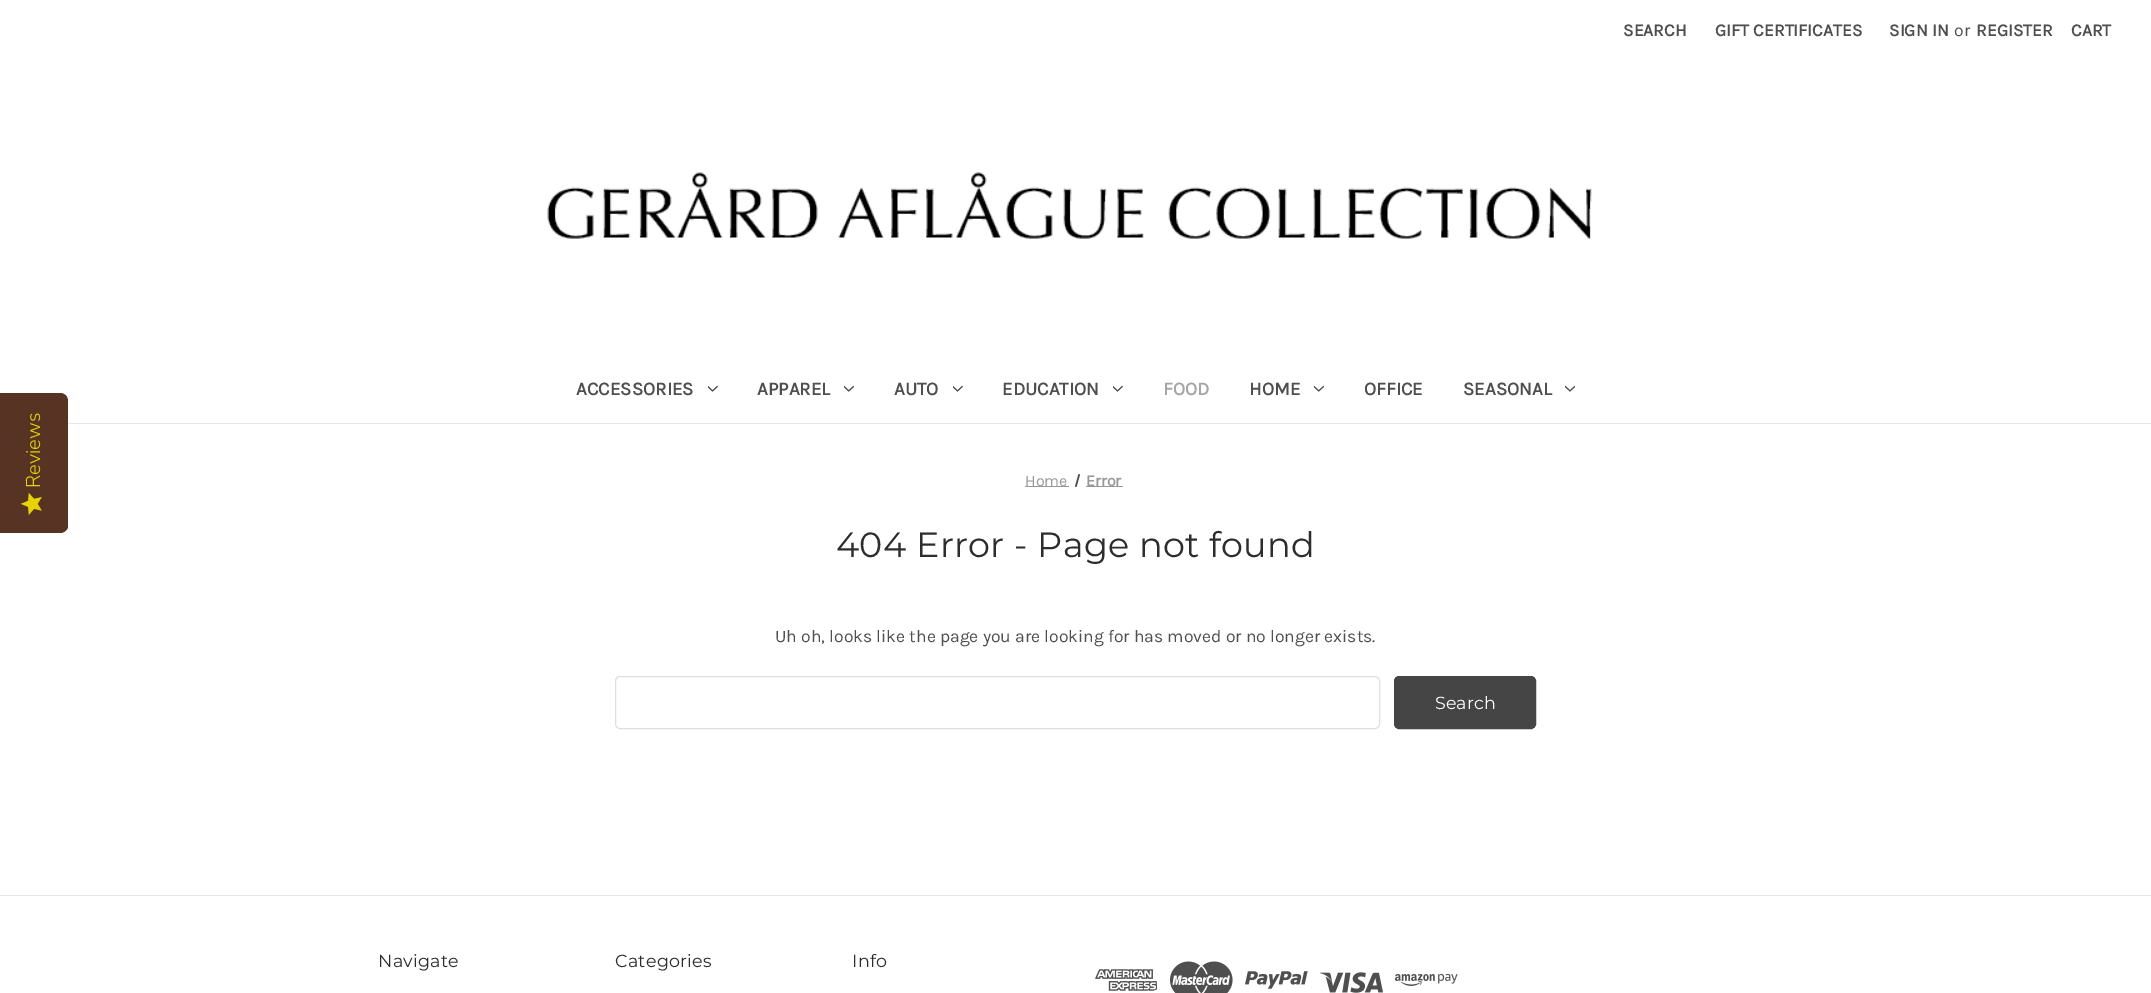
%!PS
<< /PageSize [2151 993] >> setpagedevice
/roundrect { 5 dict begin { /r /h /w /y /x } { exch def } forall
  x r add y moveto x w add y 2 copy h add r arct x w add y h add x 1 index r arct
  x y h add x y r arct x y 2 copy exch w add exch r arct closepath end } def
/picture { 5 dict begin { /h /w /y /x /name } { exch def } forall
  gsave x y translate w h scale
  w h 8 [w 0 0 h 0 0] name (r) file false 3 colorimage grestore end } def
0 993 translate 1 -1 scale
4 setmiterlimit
1 setgray
0 0 2151 993 rectfill
0.91 setgray
68 423 2083 1 rectfill
/Karla-Bold [17.5 0 0 -17.5 0 0] selectfont
0.31 setgray
1623 36 moveto (SEARCH) show
1715 36 moveto (GIFT CERTIFICATES) show
1889 36 moveto (SIGN IN) show
/Karla-Regular [17.5 0 0 -17.5 0 0] selectfont
1954 36 moveto (or) show
/Karla-Bold [17.5 0 0 -17.5 0 0] selectfont
1976 36 moveto (REGISTER) show
2071 36 moveto (CART) show
(img1.rgb) 547 172 1045 67 picture
/Karla-Bold [18.75 0 0 -18.75 0 0] selectfont
576 395 moveto (ACCESSORIES) show
(img2.rgb) 708 385 10 7 picture
757 395 moveto (APPAREL) show
(img3.rgb) 844 385 10 7 picture
894 395 moveto (AUTO) show
(img2.rgb) 953 385 10 7 picture
1002 395 moveto (EDUCATION) show
(img2.rgb) 1113 385 10 7 picture
0.647 setgray
1163 395 moveto (FOOD) show
0.31 setgray
1249 395 moveto (HOME) show
(img3.rgb) 1314 385 10 7 picture
1364 395 moveto (OFFICE) show
1463 395 moveto (SEASONAL) show
(img4.rgb) 1565 385 10 7 picture
0.341 0.2 0.137 setrgbcolor
newpath 0 533 moveto 0 393 lineto 60 393 lineto 64 393 68 396 68 401 curveto 68 526 lineto 68 530 64 533 60 533 curveto closepath fill
/NunitoSans-Light [20 0 0 -20 0 0] selectfont
0.902 0.827 0 setrgbcolor
gsave 40 488 translate -90 rotate 0 0 moveto (Reviews) show grestore
(img5.rgb) 20 492 22 23 picture
0.596 setgray
1025 486 44 1 rectfill
/Karla-Regular [16 0 0 -16 0 0] selectfont
1025 486 moveto (Home) show
0.31 setgray
newpath 1078.5 474 moveto 1080 474.5 lineto 1076.5 487 lineto 1075 486.5 lineto closepath fill
0.596 setgray
1086 486 37 1 rectfill
/Karla-Bold [16 0 0 -16 0 0] selectfont
1086 486 moveto (Error) show
/Montserrat-Thin [35 0 0 -35 0 0] selectfont
0.176 setgray
836 557 moveto 0.3 0 (404 Error - Page not found) ashow
/Karla-Regular [17.5 0 0 -17.5 0 0] selectfont
0.31 setgray
775 642 moveto (Uh oh, looks like the page you are looking for has moved or no longer exists.) show
0.875 setgray
615.5 676.5 764 52 4.5 roundrect stroke
0.271 setgray
1394.5 676.5 141 52 4.5 roundrect gsave fill grestore
stroke
/Montserrat-Thin [17.5 0 0 -17.5 0 0] selectfont
1 setgray
1435 709 moveto (Search) show
0.91 setgray
0 895 2151 1 rectfill
0.176 setgray
378 967 moveto 0.3 0 (Navigate) ashow
615 967 moveto 0.3 0 (Categories) ashow
852 967 moveto 0.3 0 (Info) ashow
(img6.rgb) 1095 969 63 22 picture
(img7.rgb) 1170 961 63 32 picture
(img8.rgb) 1245 971 63 18 picture
(img9.rgb) 1320 972 63 21 picture
(img10.rgb) 1395 974 63 12 picture
showpage
